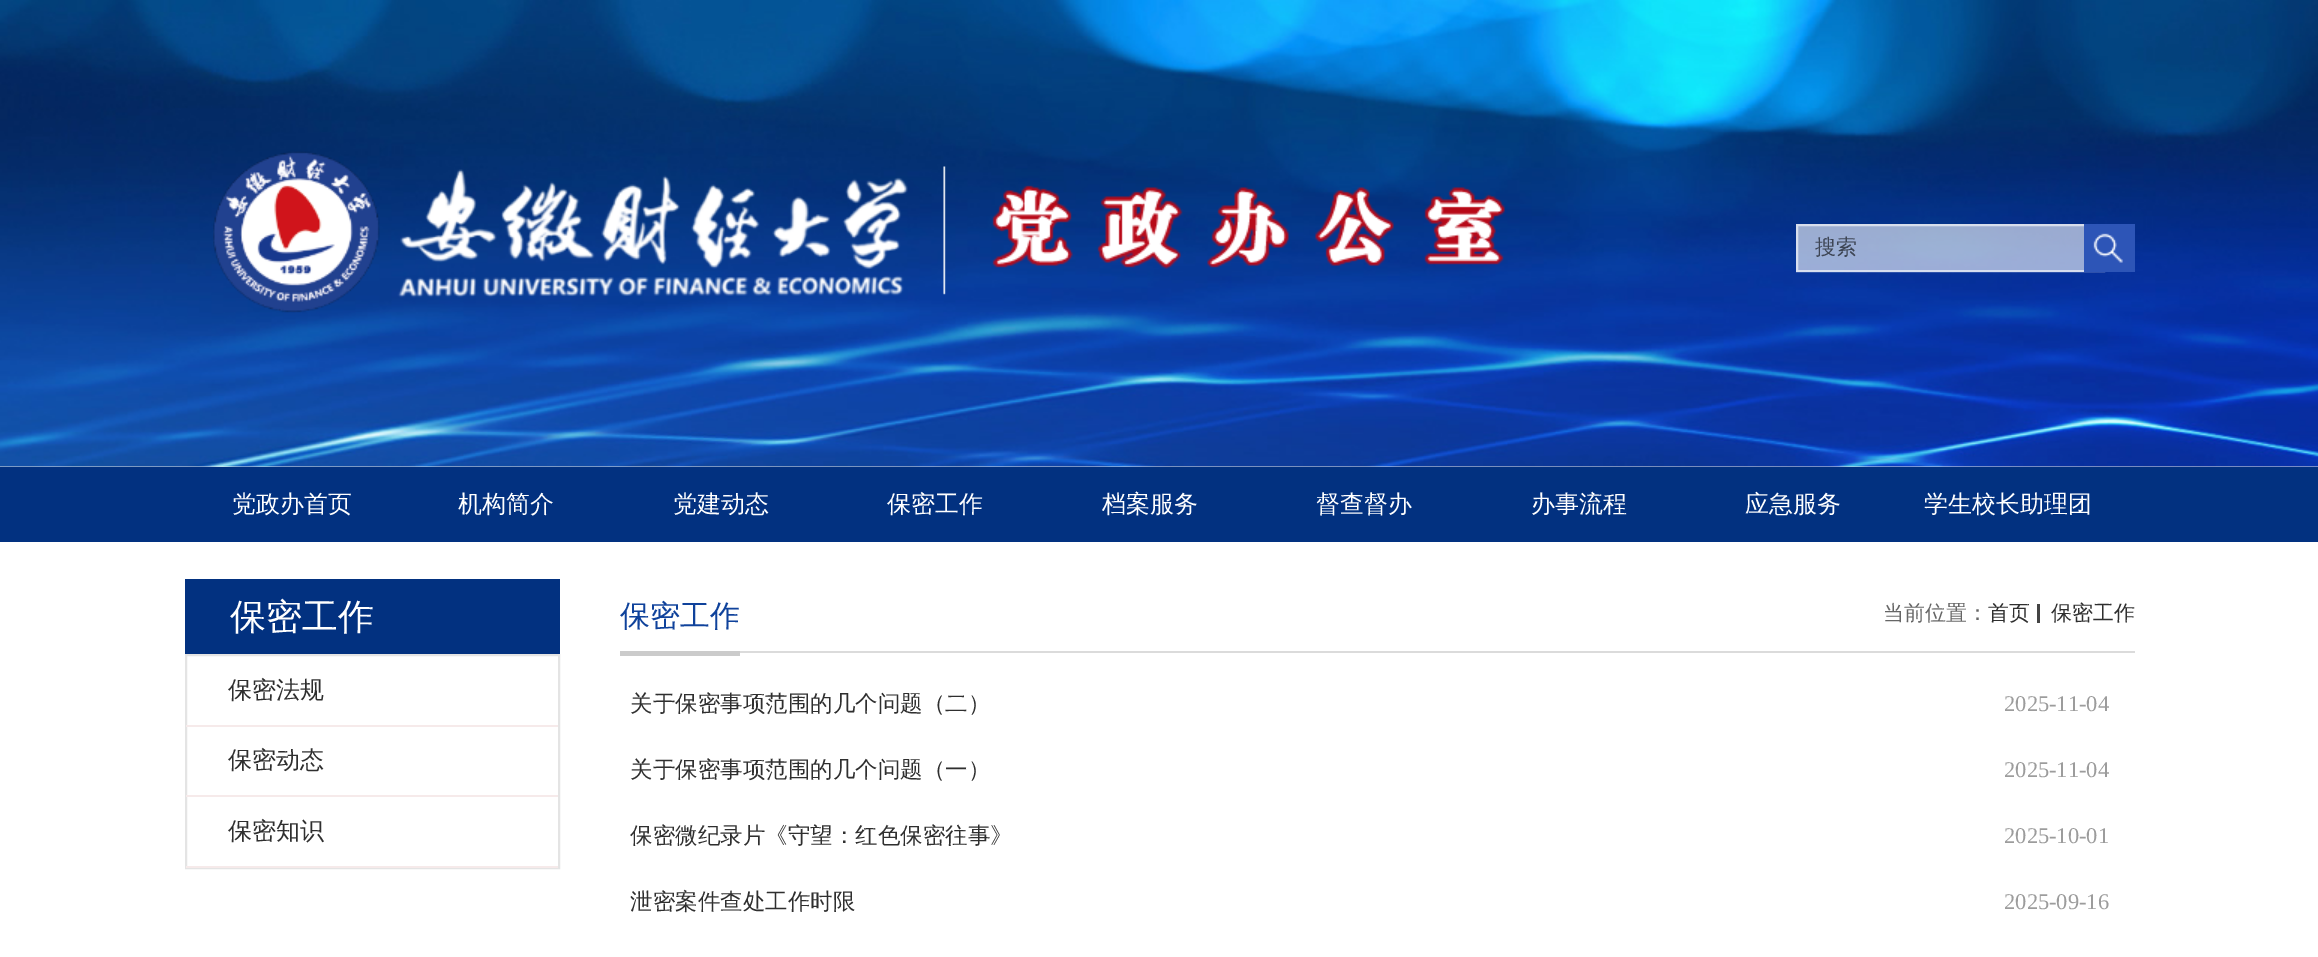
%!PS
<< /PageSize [2318 957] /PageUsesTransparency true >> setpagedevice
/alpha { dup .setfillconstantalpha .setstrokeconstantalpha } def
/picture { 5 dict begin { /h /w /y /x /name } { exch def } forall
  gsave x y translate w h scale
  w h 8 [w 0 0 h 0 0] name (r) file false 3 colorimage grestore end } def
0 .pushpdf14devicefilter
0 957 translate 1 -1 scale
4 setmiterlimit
0.902 setgray
0 0 2318 957 rectfill
(img1.rgb) 0 0 2318 467 picture
(img2.rgb) 213 151 1292 162 picture
0.6 alpha
1 setgray
1796 224 288 48 rectfill
2 setlinewidth
1797 225 307 46 rectstroke
/WenQuanYiZenHei-Medium [21 0 0 -21 0 0] selectfont
1 alpha
0.243 0.275 0.333 setrgbcolor
1815 254 moveto (搜索) show
0.176 0.333 0.718 setrgbcolor
2084 224 51 48 rectfill
(img3.rgb) 2093 233 30 30 picture
0.008 0.192 0.502 setrgbcolor
0 467 2318 75 rectfill
/WenQuanYiZenHei-Medium [24 0 0 -24 0 0] selectfont
1 setgray
232 512 moveto (党政办首页) show
458 512 moveto (机构简介) show
673 512 moveto (党建动态) show
887 512 moveto (保密工作) show
1102 512 moveto (档案服务) show
1316 512 moveto (督查督办) show
1531 512 moveto (办事流程) show
1745 512 moveto (应急服务) show
1924 512 moveto (学生校长助理团) show
0 542 2318 415 rectfill
0.008 0.192 0.502 setrgbcolor
185 579 375 75 rectfill
/WenQuanYiZenHei-Medium [36 0 0 -36 0 0] selectfont
1 setgray
230 629 moveto (保密工作) show
0.894 setgray
186 655 373 213 rectstroke
0.965 0.918 0.918 setrgbcolor
186 725 372 2 rectfill
/WenQuanYiZenHei-Medium [24 0 0 -24 0 0] selectfont
0.184 setgray
228 698 moveto (保密法规) show
0.965 0.918 0.918 setrgbcolor
186 795 372 2 rectfill
0.184 setgray
228 768 moveto (保密动态) show
0.965 0.918 0.918 setrgbcolor
186 866 372 2 rectfill
0.184 setgray
228 839 moveto (保密知识) show
0.859 setgray
740 651 1395 2 rectfill
0.796 setgray
620 651 120 5 rectfill
/WenQuanYiZenHei-Medium [30 0 0 -30 0 0] selectfont
0.059 0.259 0.608 setrgbcolor
620 626 moveto (保密工作) show
/WenQuanYiZenHei-Medium [21 0 0 -21 0 0] selectfont
0.4 setgray
1883 620 moveto (当前位置：) show
0.184 setgray
1988 620 moveto (首页) show
0.267 setgray
2037 604 3 19 rectfill
0.184 setgray
2051 620 moveto (保密工作) show
/WenQuanYiZenHei-Medium [22.5 0 0 -22.5 0 0] selectfont
630 711 moveto (关于保密事项范围的几个问题（二）) show
/LiberationSerif-Regular [22.5 0 0 -22.5 0 0] selectfont
0.612 setgray
2004 711 moveto (2025-11-04) show
/WenQuanYiZenHei-Medium [22.5 0 0 -22.5 0 0] selectfont
0.184 setgray
630 777 moveto (关于保密事项范围的几个问题（一）) show
/LiberationSerif-Regular [22.5 0 0 -22.5 0 0] selectfont
0.612 setgray
2004 777 moveto (2025-11-04) show
/WenQuanYiZenHei-Medium [22.5 0 0 -22.5 0 0] selectfont
0.184 setgray
630 843 moveto (保密微纪录片《守望：红色保密往事》) show
/LiberationSerif-Regular [22.5 0 0 -22.5 0 0] selectfont
0.612 setgray
2004 843 moveto (2025-10-01) show
/WenQuanYiZenHei-Medium [22.5 0 0 -22.5 0 0] selectfont
0.184 setgray
630 909 moveto (泄密案件查处工作时限) show
/LiberationSerif-Regular [22.5 0 0 -22.5 0 0] selectfont
0.612 setgray
2004 909 moveto (2025-09-16) show
.poppdf14devicefilter showpage
